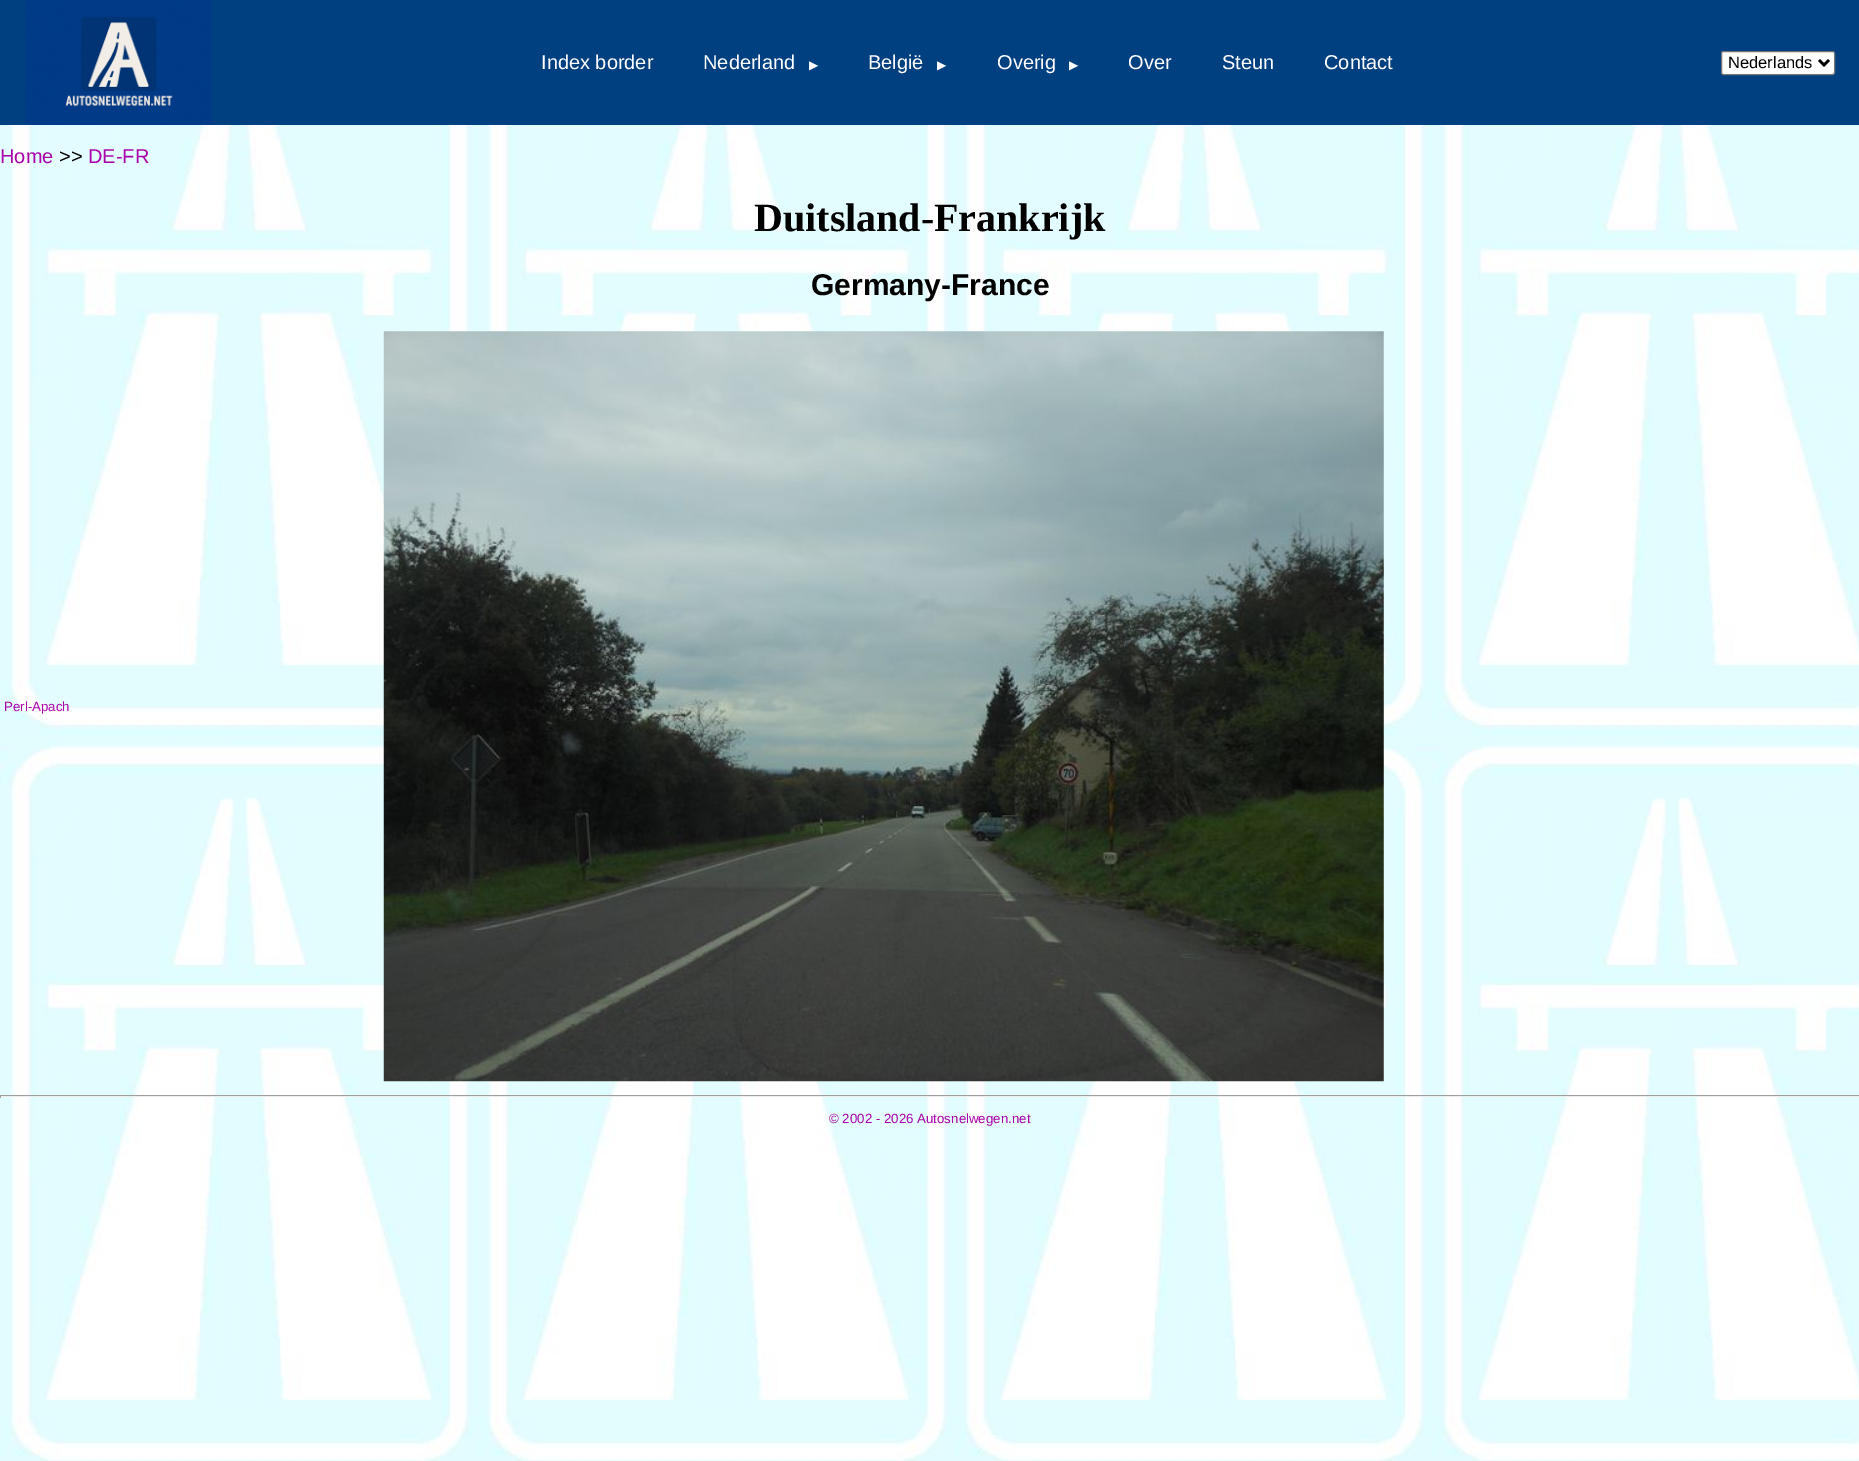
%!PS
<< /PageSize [1859 1461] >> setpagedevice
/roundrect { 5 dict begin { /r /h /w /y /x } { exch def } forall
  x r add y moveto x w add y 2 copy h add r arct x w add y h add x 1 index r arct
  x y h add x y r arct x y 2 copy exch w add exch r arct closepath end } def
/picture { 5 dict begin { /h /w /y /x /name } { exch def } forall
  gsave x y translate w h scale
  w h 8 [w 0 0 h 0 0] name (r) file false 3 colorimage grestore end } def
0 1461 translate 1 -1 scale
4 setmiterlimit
1 setgray
0 0 1859 1461 rectfill
(img1.rgb) 0 125 1859 1336 picture
0 0.251 0.502 setrgbcolor
0 0 1859 125 rectfill
(img2.rgb) 25 0 187 125 picture
/LiberationSans-Regular [20 0 0 -20 0 0] selectfont
1 setgray
541 69 moveto (Index border) show
703 69 moveto (Nederland) show
/DejaVuSans-Regular [12 0 0 -12 0 0] selectfont
809 69 moveto (▶) show
/LiberationSans-Regular [20 0 0 -20 0 0] selectfont
868 69 moveto (België) show
/DejaVuSans-Regular [12 0 0 -12 0 0] selectfont
937 69 moveto (▶) show
/LiberationSans-Regular [20 0 0 -20 0 0] selectfont
997 69 moveto (Overig) show
/DejaVuSans-Regular [12 0 0 -12 0 0] selectfont
1069 69 moveto (▶) show
/LiberationSans-Regular [20 0 0 -20 0 0] selectfont
1128 69 moveto (Over) show
1222 69 moveto (Steun) show
1324 69 moveto (Contact) show
1721.5 51.5 113 23 2 roundrect gsave fill grestore
0.463 setgray
stroke
0 setgray
2.5 setlinewidth
newpath 1819 60 moveto 1824 65 lineto 1829 60 lineto stroke
/LiberationSans-Regular [16.5 0 0 -16.5 0 0] selectfont
1728 68 moveto (Nederlands) show
/LiberationSans-Regular [20 0 0 -20 0 0] selectfont
0.667 0 0.667 setrgbcolor
0 163 moveto (Home) show
0 setgray
59 163 moveto (>>) show
0.667 0 0.667 setrgbcolor
88 163 moveto (DE-FR) show
/LiberationSerif-Bold [40 0 0 -40 0 0] selectfont
0 setgray
754 231 moveto (Duitsland-Frankrijk) show
/LiberationSans-Bold [30 0 0 -30 0 0] selectfont
811 295 moveto (Germany-France) show
/LiberationSans-Regular [13.3 0 0 -13.3 0 0] selectfont
0.667 0 0.667 setrgbcolor
4 711 moveto (Perl-Apach) show
(img3.rgb) 383 331 1001 751 picture
0.624 setgray
0 1095 1859 1 rectfill
0.933 setgray
0 1096 1859 1 rectfill
0.624 setgray
0 1095 1 3 rectfill
0.667 0 0.667 setrgbcolor
829 1123 moveto (© 2002 - 2026 Autosnelwegen.net) show
showpage
